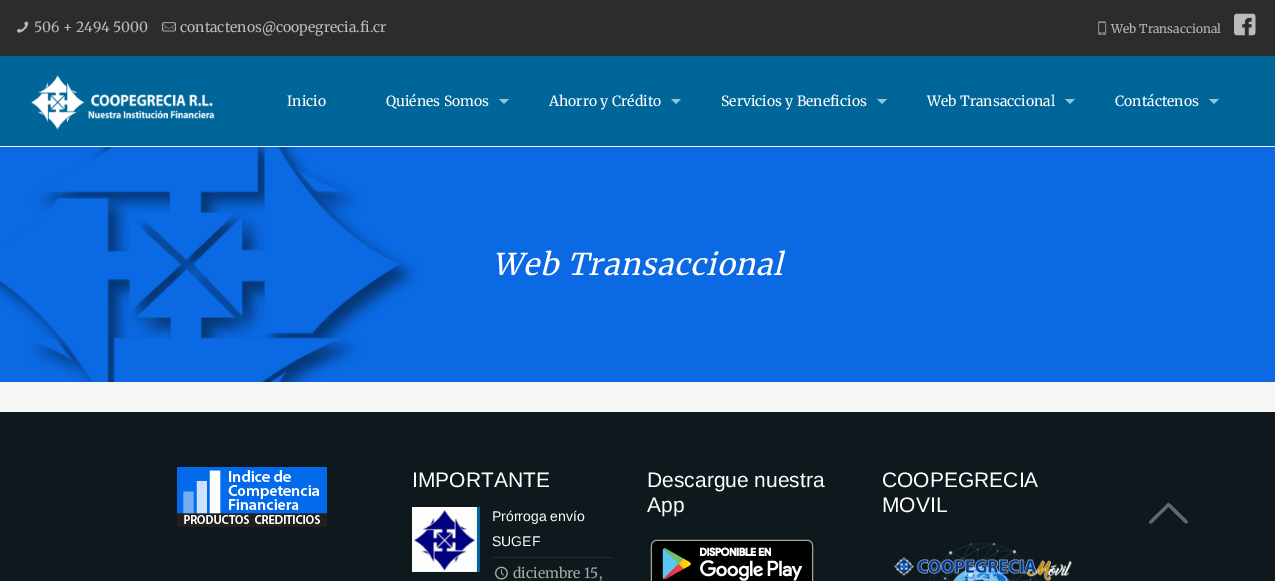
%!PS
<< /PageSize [1275 581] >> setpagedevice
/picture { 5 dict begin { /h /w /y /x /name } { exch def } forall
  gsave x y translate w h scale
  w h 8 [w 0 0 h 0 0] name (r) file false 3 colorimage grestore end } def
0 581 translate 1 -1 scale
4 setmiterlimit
0.965 setgray
0 0 1275 581 rectfill
0.173 setgray
0 0 1275 56 rectfill
(img1.rgb) 17 21 12 12 picture
/Merriweather-Light [14 0 0 -14 0 0] selectfont
0.733 setgray
34 32 moveto (506 + 2494 5000) show
(img2.rgb) 162 22 14 10 picture
180 32 moveto (contactenos@coopegrecia.fi.cr) show
(img3.rgb) 1098 21 9 14 picture
/Merriweather-Light [12 0 0 -12 0 0] selectfont
1111 33 moveto (Web Transaccional) show
(img4.rgb) 1234 13 22 23 picture
0 0.4 0.6 setrgbcolor
0 56 1275 90 rectfill
0.949 setgray
0 146 1275 1 rectfill
(img5.rgb) 31 75 184 55 picture
/Merriweather-Light [14 0 0 -14 0 0] selectfont
1 setgray
287 106 moveto (Inicio) show
386 106 moveto (Quiénes Somos) show
0.6 0.761 0.839 setrgbcolor
newpath 499 99 moveto 509 99 lineto 504 104 lineto closepath fill
1 setgray
549 106 moveto (Ahorro y Crédito) show
0.6 0.761 0.839 setrgbcolor
newpath 671 99 moveto 681 99 lineto 676 104 lineto closepath fill
1 setgray
721 106 moveto (Servicios y Beneficios) show
0.6 0.761 0.839 setrgbcolor
newpath 877 99 moveto 887 99 lineto 882 104 lineto closepath fill
1 setgray
927 106 moveto (Web Transaccional) show
0.6 0.761 0.839 setrgbcolor
newpath 1065 99 moveto 1075 99 lineto 1070 104 lineto closepath fill
1 setgray
1115 106 moveto (Contáctenos) show
0.6 0.761 0.839 setrgbcolor
newpath 1209 99 moveto 1219 99 lineto 1214 104 lineto closepath fill
(img6.rgb) 0 147 1275 235 picture
/Merriweather-LightItalic [30 0 0 -30 0 0] selectfont
1 setgray
492 275 moveto 1 0 (Web Transaccional) ashow
0.055 0.094 0.114 setrgbcolor
0 412 1275 169 rectfill
(img7.rgb) 177 467 150 60 picture
/LiberationSans-Regular [21 0 0 -21 0 0] selectfont
1 setgray
412 487 moveto (IMPORTANTE) show
0 0.4 0.6 setrgbcolor
477 507 3 65 rectfill
(img8.rgb) 412 507 65 65 picture
0.129 0.165 0.184 setrgbcolor
492 557 121 1 rectfill
/LiberationSans-Regular [14 0 0 -14 0 0] selectfont
1 setgray
492 521 moveto (Prórroga envío) show
492 546 moveto (SUGEF) show
(img9.rgb) 495 566 13 14 picture
/Merriweather-Light [14 0 0 -14 0 0] selectfont
0.659 setgray
513 578 moveto (diciembre 15,) show
/LiberationSans-Regular [21 0 0 -21 0 0] selectfont
1 setgray
647 487 moveto (Descargue nuestra) show
647 512 moveto (App) show
(img10.rgb) 650 539 164 42 picture
882 487 moveto (COOPEGRECIA) show
882 512 moveto (MOVIL) show
(img11.rgb) 894 542 178 39 picture
0.396 0.4 0.424 setrgbcolor
newpath 1185 523 moveto 1168.5 507 lineto 1154.5 520.5 lineto 1153.5 521.5 1150.5 525.5 1149 522.5 curveto 1149.5 521 lineto 1168 503 lineto 1169.5 502.5 1174.5 508.5 1175.5 509 curveto 1184.5 518 lineto 1184.5 518 1190.5 522.5 1186.5 523.5 curveto closepath fill
showpage
